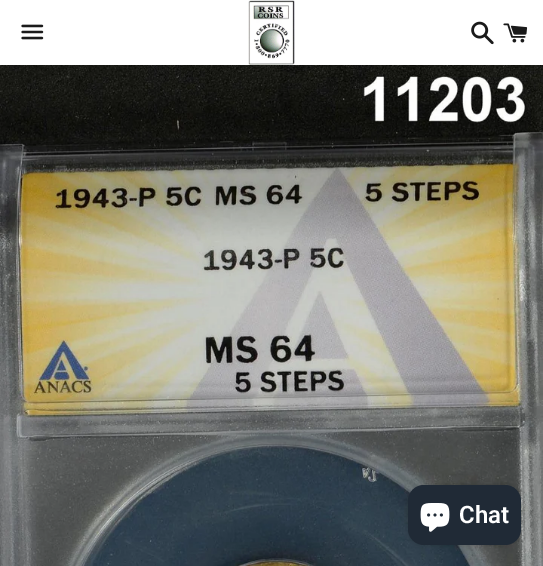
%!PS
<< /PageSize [543 566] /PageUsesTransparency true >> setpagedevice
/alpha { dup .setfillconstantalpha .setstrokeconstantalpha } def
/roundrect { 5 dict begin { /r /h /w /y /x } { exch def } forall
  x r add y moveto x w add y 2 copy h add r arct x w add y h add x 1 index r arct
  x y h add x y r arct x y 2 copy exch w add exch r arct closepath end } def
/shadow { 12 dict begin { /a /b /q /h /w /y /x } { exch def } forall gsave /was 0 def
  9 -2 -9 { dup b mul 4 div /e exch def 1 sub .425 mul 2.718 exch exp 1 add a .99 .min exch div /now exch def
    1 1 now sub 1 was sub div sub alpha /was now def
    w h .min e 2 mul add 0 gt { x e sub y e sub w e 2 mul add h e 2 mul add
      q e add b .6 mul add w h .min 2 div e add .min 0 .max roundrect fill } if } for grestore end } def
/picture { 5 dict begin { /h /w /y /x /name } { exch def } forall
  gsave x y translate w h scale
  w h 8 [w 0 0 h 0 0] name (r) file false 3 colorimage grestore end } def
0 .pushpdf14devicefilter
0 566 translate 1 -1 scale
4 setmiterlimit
1 setgray
0 0 543 566 rectfill
(img1.rgb) 21 24 23 16 picture
(img2.rgb) 248 0 47 65 picture
(img3.rgb) 471 21 23 24 picture
(img4.rgb) 503 23 25 20 picture
(img5.rgb) 0 65 543 501 picture
0 setgray
408 485 113 60 16 2.5 0.15 shadow
0.125 0.165 0.212 setrgbcolor
408 485 113 60 16 roundrect fill
(img6.rgb) 420 503 30 29 picture
/Roboto-SemiBold [24 0 0 -24 0 0] selectfont
1 setgray
459 523 moveto (Chat) show
.poppdf14devicefilter showpage
